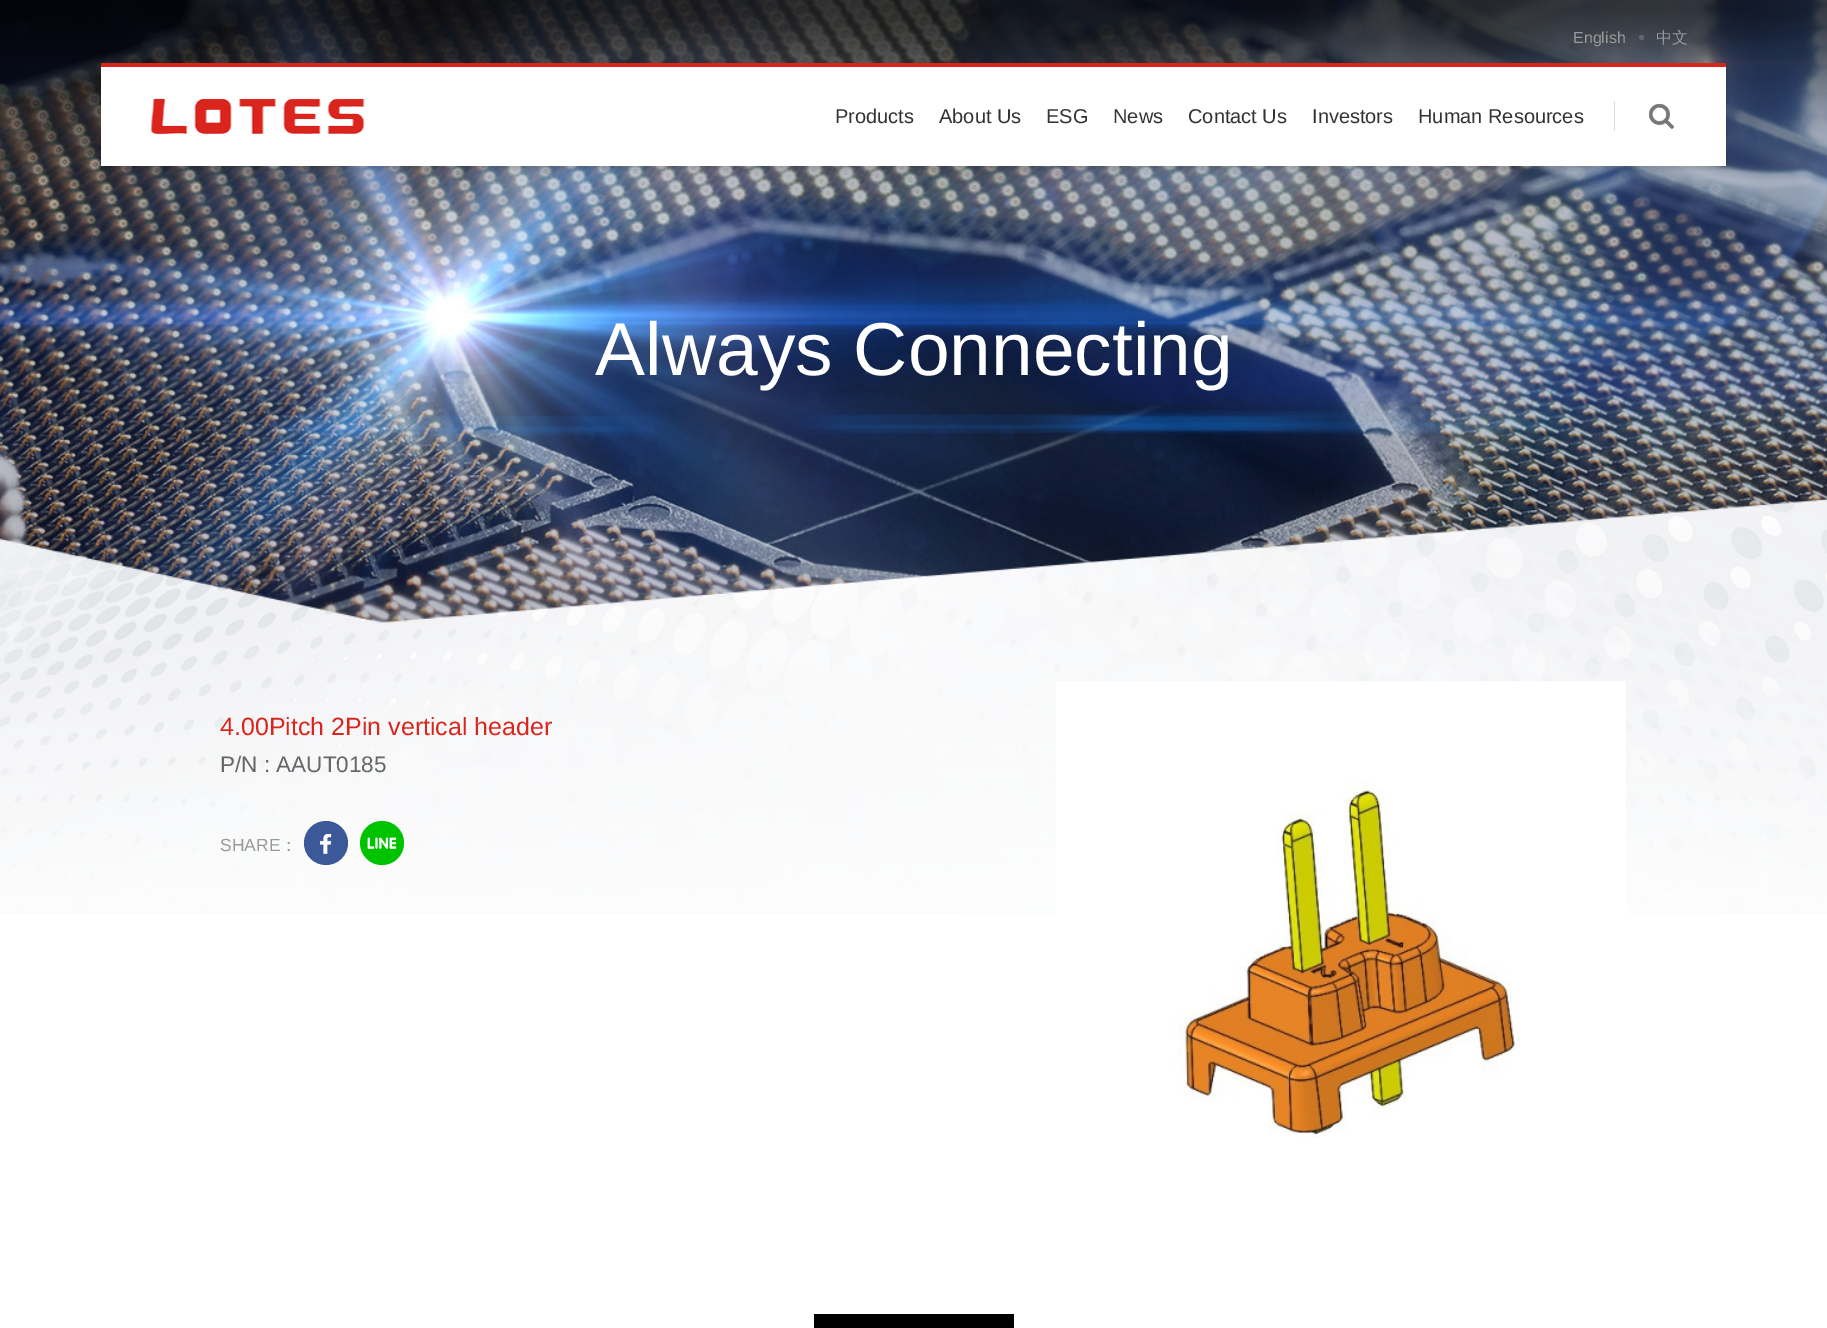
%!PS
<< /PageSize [1827 1328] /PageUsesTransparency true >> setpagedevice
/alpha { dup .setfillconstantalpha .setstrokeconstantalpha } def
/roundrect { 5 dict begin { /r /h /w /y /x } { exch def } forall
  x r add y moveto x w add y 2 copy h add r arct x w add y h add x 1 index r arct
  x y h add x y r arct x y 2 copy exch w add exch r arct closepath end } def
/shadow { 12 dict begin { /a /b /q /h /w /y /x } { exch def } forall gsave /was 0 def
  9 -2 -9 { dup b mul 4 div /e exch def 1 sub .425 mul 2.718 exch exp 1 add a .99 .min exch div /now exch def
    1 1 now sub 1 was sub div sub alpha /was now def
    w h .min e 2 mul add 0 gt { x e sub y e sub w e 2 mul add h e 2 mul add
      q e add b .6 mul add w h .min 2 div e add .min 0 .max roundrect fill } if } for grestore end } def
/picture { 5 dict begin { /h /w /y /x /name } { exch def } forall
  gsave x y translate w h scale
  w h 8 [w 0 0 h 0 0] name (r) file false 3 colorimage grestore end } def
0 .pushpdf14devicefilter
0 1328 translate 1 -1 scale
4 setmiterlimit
1 setgray
0 0 1827 1328 rectfill
(img3.rgb) 0 0 1827 623 picture
0 setgray
101 65 1625 104 0 3 0.15 shadow
1 setgray
101 67 1625 99 rectfill
0.855 0.145 0.114 setrgbcolor
101 63 1625 4 rectfill
/LiberationSans-Regular [16 0 0 -16 0 0] selectfont
0.6 setgray
1573 43 moveto (English) show
0.4 setgray
newpath 1641.5 37.5 2.5 0 360 arc closepath fill
/WenQuanYiZenHei-Medium [16 0 0 -16 0 0] selectfont
0.6 setgray
1656 43 moveto (中文) show
(img1.rgb) 150 98 215 36 picture
/LiberationSans-Regular [20 0 0 -20 0 0] selectfont
0.2 setgray
835 123 moveto (Products) show
939 123 moveto (About Us) show
1046 123 moveto (ESG) show
1113 123 moveto (News) show
1188 123 moveto (Contact Us) show
1312 123 moveto (Investors) show
1418 123 moveto (Human Resources) show
0.867 setgray
1614 101 1 30 rectfill
(img2.rgb) 1648 103 26 26 picture
/LiberationSans-Regular [75 0 0 -75 0 0] selectfont
1 setgray
595 375 moveto (Always Connecting) show
(img4.rgb) 0 498 1827 416 picture
/LiberationSans-Regular [25 0 0 -25 0 0] selectfont
0.855 0.145 0.114 setrgbcolor
220 735 moveto (4.00Pitch 2Pin vertical header) show
/LiberationSans-Regular [22.5 0 0 -22.5 0 0] selectfont
0.4 setgray
220 772 moveto (P/N : AAUT0185) show
/LiberationSans-Regular [17.5 0 0 -17.5 0 0] selectfont
0.6 setgray
220 851 moveto (SHARE) show
/WenQuanYiZenHei-Medium [17.5 0 0 -17.5 0 0] selectfont
280 851 moveto (：) show
0.231 0.349 0.596 setrgbcolor
newpath 326 843 22 0 360 arc closepath fill
(img5.rgb) 320 833 12 21 picture
0 0.765 0 setrgbcolor
newpath 382 843 22 0 360 arc closepath fill
(img6.rgb) 367 837 30 12 picture
(img7.rgb) 1056 681 570 457 picture
0 setgray
814 1314 200 14 rectfill
.poppdf14devicefilter showpage
